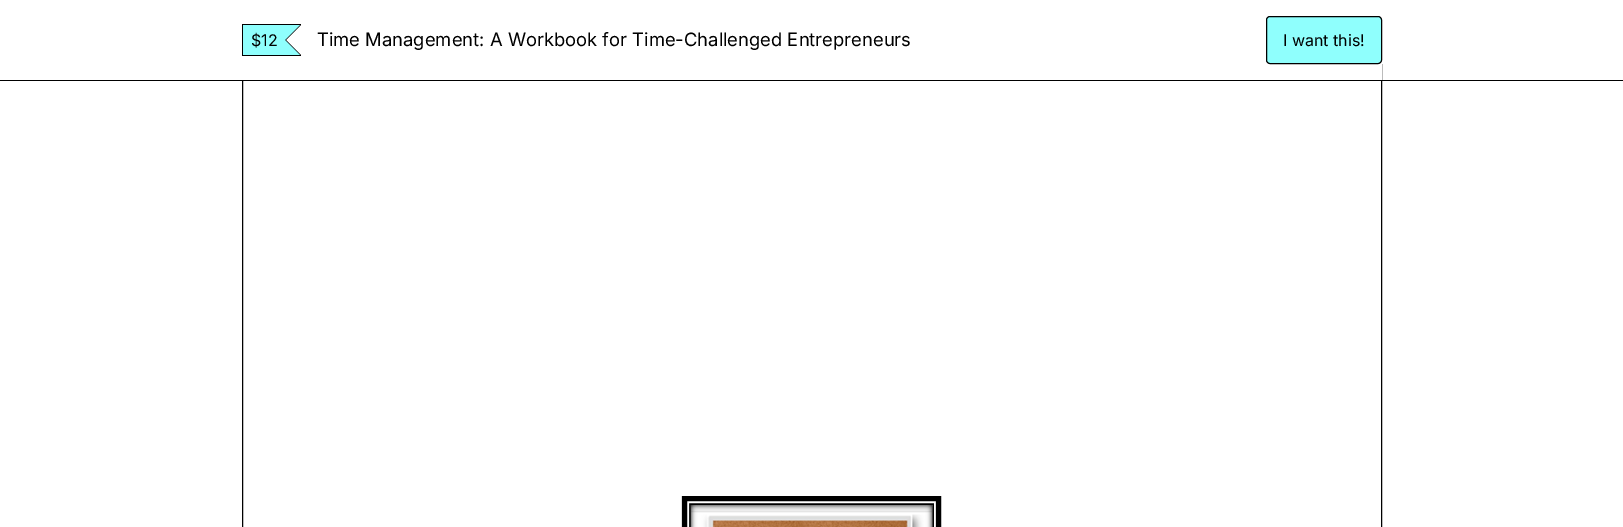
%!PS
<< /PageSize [1623 527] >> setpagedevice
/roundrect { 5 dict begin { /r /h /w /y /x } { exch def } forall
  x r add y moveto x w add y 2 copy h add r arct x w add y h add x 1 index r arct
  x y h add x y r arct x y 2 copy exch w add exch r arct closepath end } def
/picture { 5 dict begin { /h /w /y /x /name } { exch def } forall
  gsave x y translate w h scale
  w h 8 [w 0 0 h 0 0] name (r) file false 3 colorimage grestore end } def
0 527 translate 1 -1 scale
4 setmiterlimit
1 setgray
0 0 1623 527 rectfill
0 setgray
242.5 64.5 1139 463 rectstroke
0 80 1623 1 rectfill
1 setgray
242 64 1140 16 rectfill
0 setgray
242 24 59 1 rectfill
242 55 59 1 rectfill
242 24 1 32 rectfill
0.561 1 0.992 setrgbcolor
243 25 42 30 rectfill
0 setgray
newpath 285 25 moveto 301 25 lineto 286 40 lineto closepath 301 55 moveto 285 55 lineto 286 40 lineto closepath fill
285 39 1 2 rectfill
0.561 1 0.992 setrgbcolor
newpath 284 25 moveto 300 25 lineto 285 40 lineto closepath 300 55 moveto 284 55 lineto 285 40 lineto closepath fill
/Inter-Regular [16 0 0 -16 0 0] selectfont
0 setgray
251 46 moveto ($12) show
/Inter-Regular [18.4 0 0 -18.4 0 0] selectfont
317 46 moveto (Time Management: A Workbook for Time-Challenged Entrepreneurs) show
0.561 1 0.992 setrgbcolor
1266.5 16.5 115 47 3.5 roundrect gsave fill grestore
0 setgray
stroke
/Inter-Regular [16 0 0 -16 0 0] selectfont
1283 46 moveto (I want this!) show
(img1.rgb) 681 496 261 31 picture
showpage
